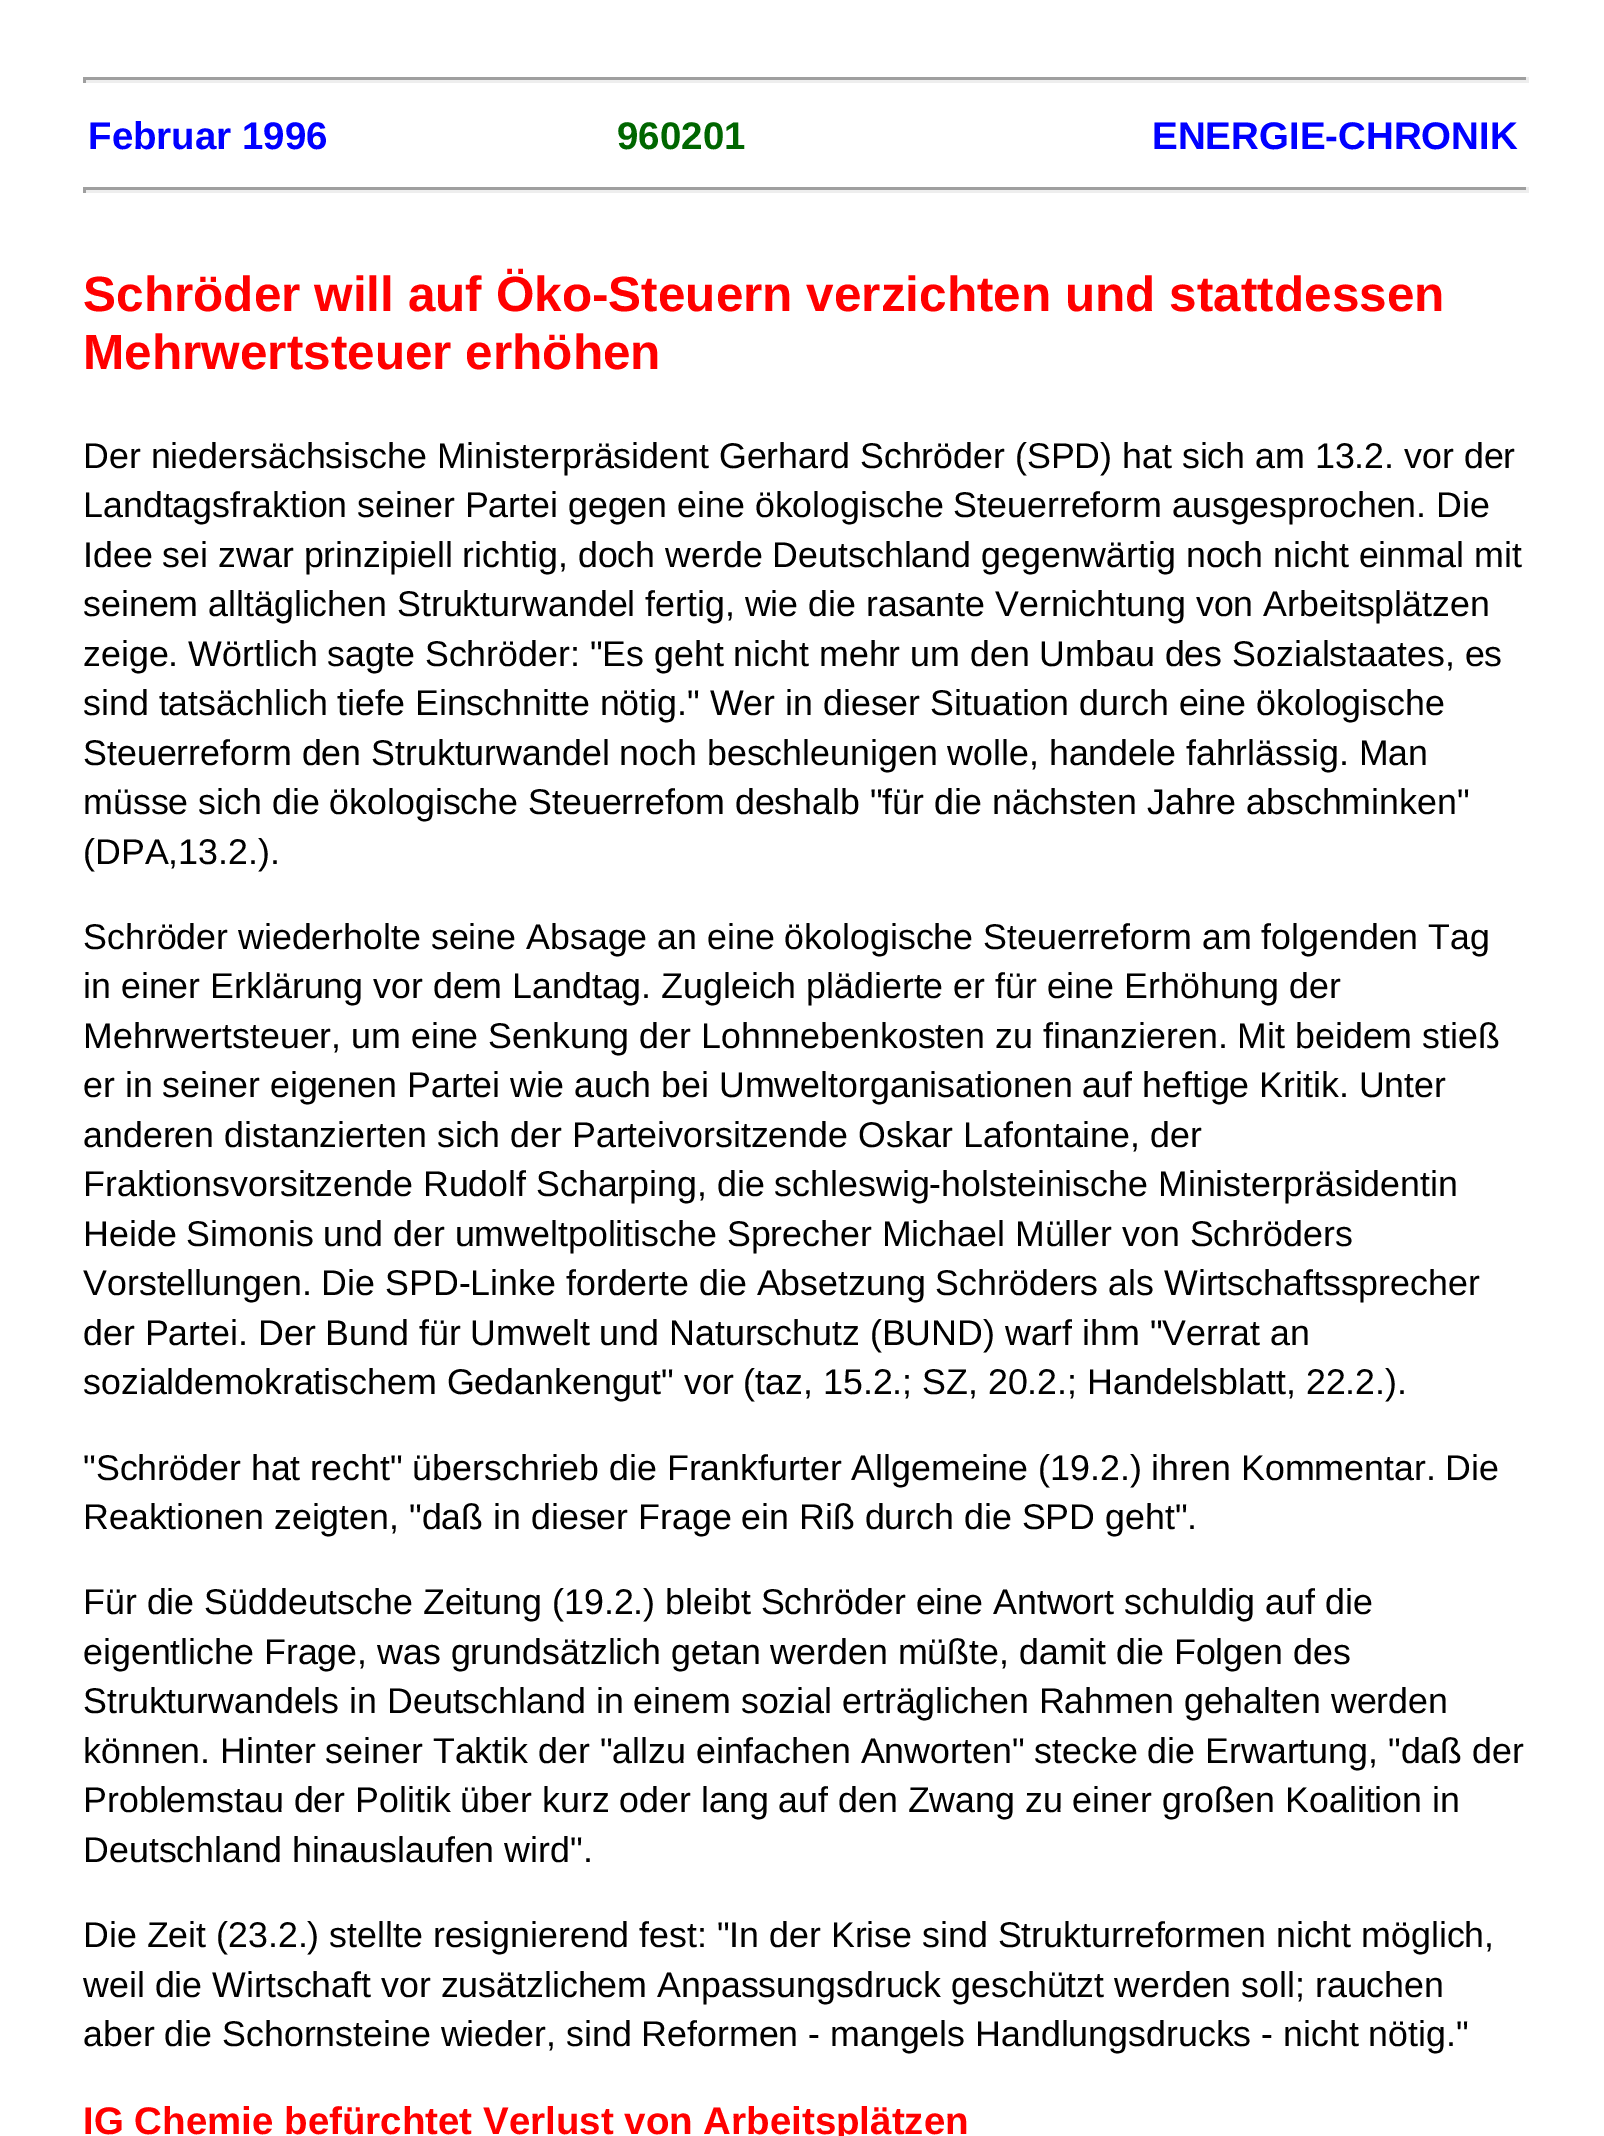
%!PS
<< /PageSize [1604 2136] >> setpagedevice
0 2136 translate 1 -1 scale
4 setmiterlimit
1 setgray
0 0 1604 2136 rectfill
0.624 setgray
83 77 1446 3 rectfill
0.933 setgray
1526 77 3 6 rectfill
83 80 1446 3 rectfill
0.624 setgray
83 77 3 6 rectfill
/LiberationSans-Bold [38.5 0 0 -38.5 0 0] selectfont
0 0 1 setrgbcolor
88 149 moveto (Februar 1996) show
0 0.4 0 setrgbcolor
617 149 moveto (960201) show
0 0 1 setrgbcolor
1152 149 moveto (ENERGIE-CHRONIK) show
0.624 setgray
83 187 1446 3 rectfill
0.933 setgray
1526 187 3 6 rectfill
83 190 1446 3 rectfill
0.624 setgray
83 187 3 6 rectfill
/LiberationSans-Bold [49.5 0 0 -49.5 0 0] selectfont
1 0 0 setrgbcolor
83 311 moveto (Schröder will auf Öko-Steuern verzichten und stattdessen) show
83 369 moveto (Mehrwertsteuer erhöhen) show
/LiberationSans-Regular [35.75 0 0 -35.75 0 0] selectfont
0 setgray
83 468 moveto (Der niedersächsische Ministerpräsident Gerhard Schröder \(SPD\) hat sich am 13.2. vor der) show
83 517 moveto (Landtagsfraktion seiner Partei gegen eine ökologische Steuerreform ausgesprochen. Die) show
83 567 moveto (Idee sei zwar prinzipiell richtig, doch werde Deutschland gegenwärtig noch nicht einmal mit) show
83 616 moveto (seinem alltäglichen Strukturwandel fertig, wie die rasante Vernichtung von Arbeitsplätzen) show
83 666 moveto (zeige. Wörtlich sagte Schröder: "Es geht nicht mehr um den Umbau des Sozialstaates, es) show
83 715 moveto (sind tatsächlich tiefe Einschnitte nötig." Wer in dieser Situation durch eine ökologische) show
83 765 moveto (Steuerreform den Strukturwandel noch beschleunigen wolle, handele fahrlässig. Man) show
83 814 moveto (müsse sich die ökologische Steuerrefom deshalb "für die nächsten Jahre abschminken") show
83 864 moveto (\(DPA,13.2.\).) show
83 949 moveto (Schröder wiederholte seine Absage an eine ökologische Steuerreform am folgenden Tag) show
83 998 moveto (in einer Erklärung vor dem Landtag. Zugleich plädierte er für eine Erhöhung der) show
83 1048 moveto (Mehrwertsteuer, um eine Senkung der Lohnnebenkosten zu finanzieren. Mit beidem stieß) show
83 1097 moveto (er in seiner eigenen Partei wie auch bei Umweltorganisationen auf heftige Kritik. Unter) show
83 1147 moveto (anderen distanzierten sich der Parteivorsitzende Oskar Lafontaine, der) show
83 1196 moveto (Fraktionsvorsitzende Rudolf Scharping, die schleswig-holsteinische Ministerpräsidentin) show
83 1246 moveto (Heide Simonis und der umweltpolitische Sprecher Michael Müller von Schröders) show
83 1295 moveto (Vorstellungen. Die SPD-Linke forderte die Absetzung Schröders als Wirtschaftssprecher) show
83 1345 moveto (der Partei. Der Bund für Umwelt und Naturschutz \(BUND\) warf ihm "Verrat an) show
83 1394 moveto (sozialdemokratischem Gedankengut" vor \(taz, 15.2.; SZ, 20.2.; Handelsblatt, 22.2.\).) show
83 1480 moveto ("Schröder hat recht" überschrieb die Frankfurter Allgemeine \(19.2.\) ihren Kommentar. Die) show
83 1529 moveto (Reaktionen zeigten, "daß in dieser Frage ein Riß durch die SPD geht".) show
83 1614 moveto (Für die Süddeutsche Zeitung \(19.2.\) bleibt Schröder eine Antwort schuldig auf die) show
83 1664 moveto (eigentliche Frage, was grundsätzlich getan werden müßte, damit die Folgen des) show
83 1713 moveto (Strukturwandels in Deutschland in einem sozial erträglichen Rahmen gehalten werden) show
83 1763 moveto (können. Hinter seiner Taktik der "allzu einfachen Anworten" stecke die Erwartung, "daß der) show
83 1812 moveto (Problemstau der Politik über kurz oder lang auf den Zwang zu einer großen Koalition in) show
83 1862 moveto (Deutschland hinauslaufen wird".) show
83 1947 moveto (Die Zeit \(23.2.\) stellte resignierend fest: "In der Krise sind Strukturreformen nicht möglich,) show
83 1997 moveto (weil die Wirtschaft vor zusätzlichem Anpassungsdruck geschützt werden soll; rauchen) show
83 2046 moveto (aber die Schornsteine wieder, sind Reformen - mangels Handlungsdrucks - nicht nötig.") show
/LiberationSans-Bold [38.5 0 0 -38.5 0 0] selectfont
1 0 0 setrgbcolor
83 2134 moveto (IG Chemie befürchtet Verlust von Arbeitsplätzen) show
showpage
